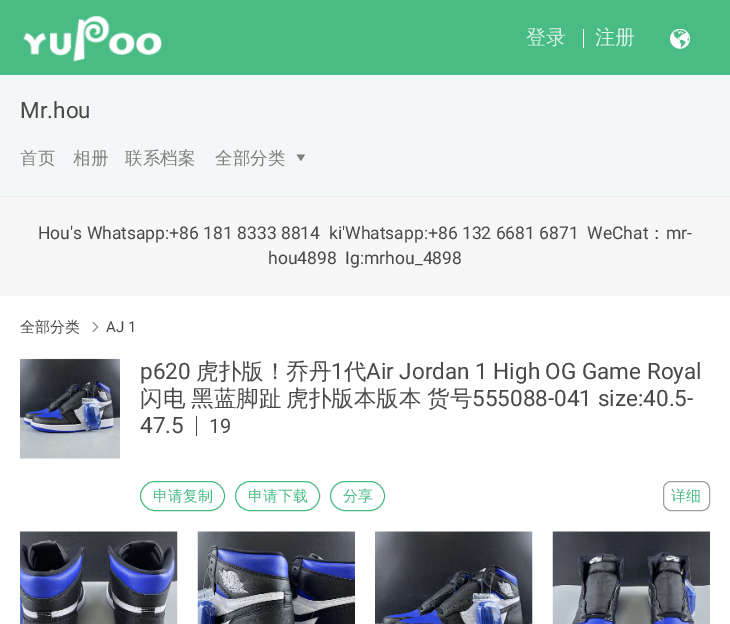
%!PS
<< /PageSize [730 624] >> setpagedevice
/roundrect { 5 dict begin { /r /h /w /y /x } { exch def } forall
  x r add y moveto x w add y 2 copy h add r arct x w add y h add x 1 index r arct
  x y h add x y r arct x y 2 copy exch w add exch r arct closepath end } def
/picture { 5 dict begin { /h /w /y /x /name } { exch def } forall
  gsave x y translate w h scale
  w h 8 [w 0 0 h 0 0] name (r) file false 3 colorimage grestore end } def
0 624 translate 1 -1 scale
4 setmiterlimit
1 setgray
0 0 730 624 rectfill
0.286 0.737 0.522 setrgbcolor
0 0 730 75 rectfill
(img1.rgb) 23 16 139 46 picture
/WenQuanYiZenHei-Medium [20 0 0 -20 0 0] selectfont
0.859 0.949 0.906 setrgbcolor
526 44 moveto (登录) show
1 setgray
583 29 1 19 rectfill
0.859 0.949 0.906 setrgbcolor
595 44 moveto (注册) show
(img2.rgb) 670 29 20 20 picture
0.953 0.969 0.969 setrgbcolor
0 75 730 121 rectfill
/Roboto-Regular [22.5 0 0 -22.5 0 0] selectfont
0.286 setgray
20 118 moveto (Mr.hou) show
/WenQuanYiZenHei-Medium [17.5 0 0 -17.5 0 0] selectfont
0.498 setgray
20 164 moveto (首页) show
73 164 moveto (相册) show
125 164 moveto (联系档案) show
215 164 moveto (全部分类) show
newpath 301 161 moveto 296.5 154.5 lineto 305 154.5 lineto closepath fill
0.969 setgray
0 197 730 99 rectfill
0.925 setgray
0 196 730 1 rectfill
/Roboto-Regular [17.5 0 0 -17.5 0 0] selectfont
0.286 setgray
38 239 moveto (Hou's Whatsapp:+86 181 8333 8814  ki'Whatsapp:+86 132 6681 6871  WeChat) show
/WenQuanYiZenHei-Medium [17.5 0 0 -17.5 0 0] selectfont
648 239 moveto (：) show
/Roboto-Regular [17.5 0 0 -17.5 0 0] selectfont
666 239 moveto (mr-) show
268 264 moveto (hou4898  Ig:mrhou_4898) show
/WenQuanYiZenHei-Medium [15 0 0 -15 0 0] selectfont
20 332 moveto (全部分类) show
(img3.rgb) 92 321 7 12 picture
/Roboto-Regular [15 0 0 -15 0 0] selectfont
106 332 moveto (AJ 1) show
(img4.rgb) 20 358 100 101 picture
/Roboto-Regular [22.5 0 0 -22.5 0 0] selectfont
140 379 moveto (p620) show
/WenQuanYiZenHei-Medium [22.5 0 0 -22.5 0 0] selectfont
196 379 moveto (虎扑版！乔丹) show
/Roboto-Regular [22.5 0 0 -22.5 0 0] selectfont
331 379 moveto (1) show
/WenQuanYiZenHei-Medium [22.5 0 0 -22.5 0 0] selectfont
344 379 moveto (代) show
/Roboto-Regular [22.5 0 0 -22.5 0 0] selectfont
366 379 moveto (Air Jordan 1 High OG Game Royal) show
/WenQuanYiZenHei-Medium [22.5 0 0 -22.5 0 0] selectfont
140 406 moveto (闪电) show
191 406 moveto (黑蓝脚趾) show
286 406 moveto (虎扑版本版本) show
427 406 moveto (货号) show
/Roboto-Regular [22.5 0 0 -22.5 0 0] selectfont
472 406 moveto (555088-041 size:40.5-) show
140 433 moveto (47.5) show
196 416 1 20 rectfill
/Roboto-Regular [20 0 0 -20 0 0] selectfont
209 433 moveto (19) show
0.286 0.737 0.522 setrgbcolor
140.5 481.5 84 29 14.5 roundrect stroke
/WenQuanYiZenHei-Medium [15 0 0 -15 0 0] selectfont
153 501 moveto (申请复制) show
235.5 481.5 84 29 14.5 roundrect stroke
248 501 moveto (申请下载) show
330.5 481.5 54 29 14.5 roundrect stroke
343 501 moveto (分享) show
0.624 setgray
663.5 481.5 46 29 7.5 roundrect stroke
0.286 0.737 0.522 setrgbcolor
671 501 moveto (详细) show
(img5.rgb) 20 531 158 93 picture
(img6.rgb) 197 531 158 93 picture
(img7.rgb) 375 531 158 93 picture
(img8.rgb) 552 531 158 93 picture
showpage
